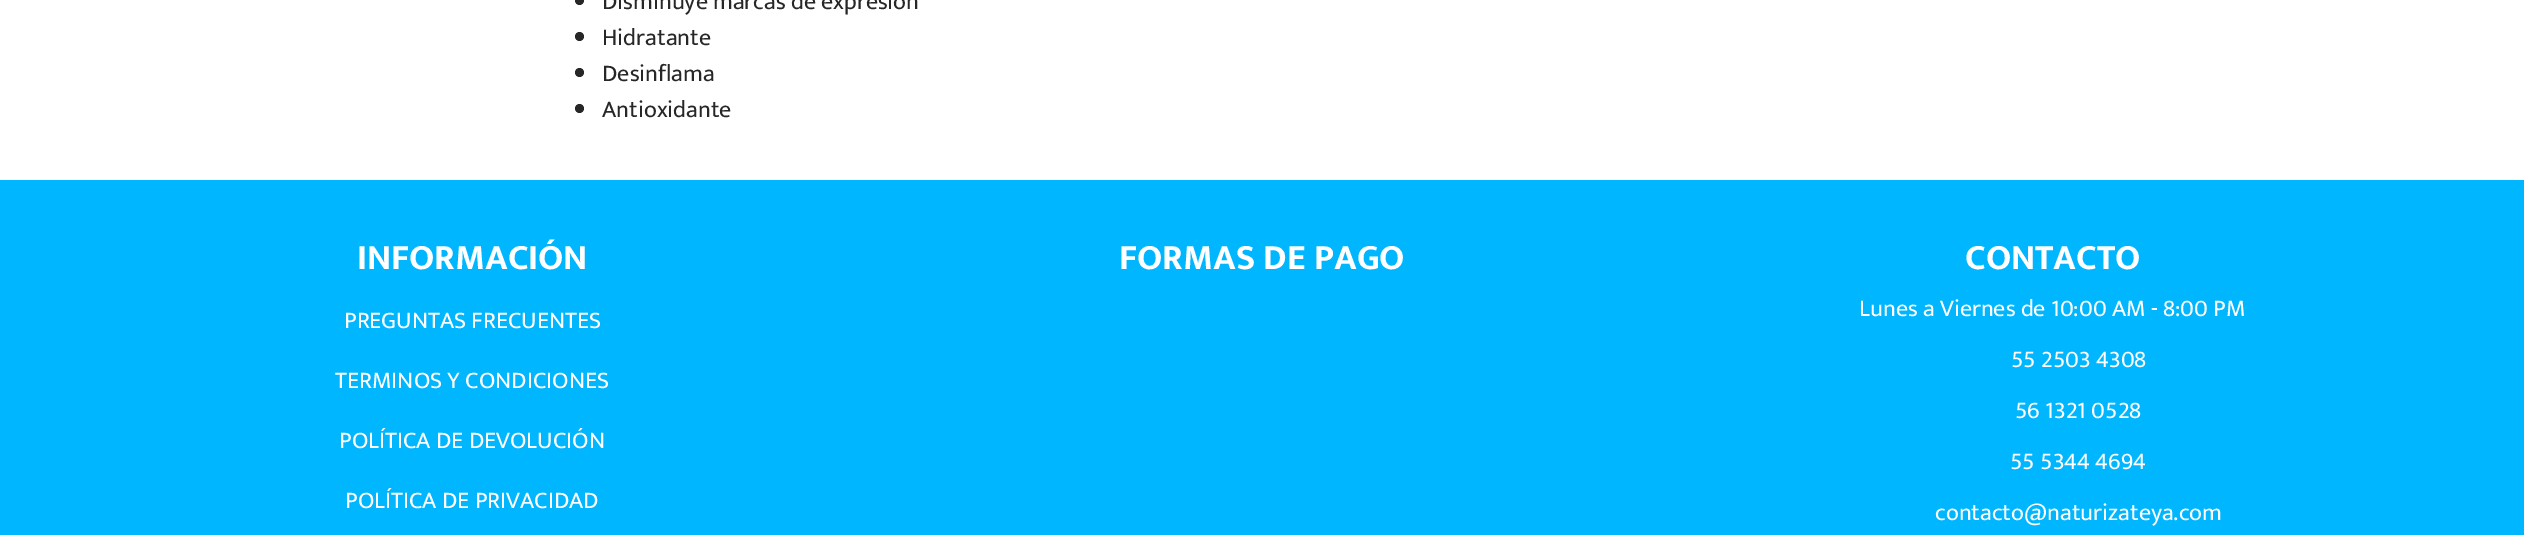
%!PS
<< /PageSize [2524 535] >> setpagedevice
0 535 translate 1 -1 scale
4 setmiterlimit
1 setgray
0 0 2524 535 rectfill
0.153 setgray
newpath 579.5 0.5 4.5 0 360 arc closepath fill
/Mukta-Regular [24 0 0 -24 0 0] selectfont
602 9 moveto (Disminuye marcas de expresión) show
newpath 579.5 36.5 4.5 0 360 arc closepath fill
602 45 moveto (Hidratante) show
newpath 579.5 72.5 4.5 0 360 arc closepath fill
602 81 moveto (Desinflama) show
newpath 579.5 108.5 4.5 0 360 arc closepath fill
602 117 moveto (Antioxidante) show
0 0.714 1 setrgbcolor
0 180 2524 355 rectfill
/Mukta-Bold [36 0 0 -36 0 0] selectfont
1 setgray
357 269 moveto (INFORMACIÓN) show
/Mukta-Regular [24 0 0 -24 0 0] selectfont
344 328 moveto (PREGUNTAS FRECUENTES) show
335 388 moveto (TERMINOS Y CONDICIONES) show
339 448 moveto (POLÍTICA DE DEVOLUCIÓN) show
345 508 moveto (POLÍTICA DE PRIVACIDAD) show
/Mukta-Bold [36 0 0 -36 0 0] selectfont
1119 269 moveto (FORMAS DE PAGO) show
1965 269 moveto (CONTACTO) show
/Mukta-Regular [24 0 0 -24 0 0] selectfont
1859 316 moveto (Lunes a Viernes de 10:00 AM - 8:00 PM) show
2011 367 moveto (55 2503 4308) show
2015 418 moveto (56 1321 0528) show
2010 469 moveto (55 5344 4694) show
1935 520 moveto (contacto@naturizateya.com) show
showpage
